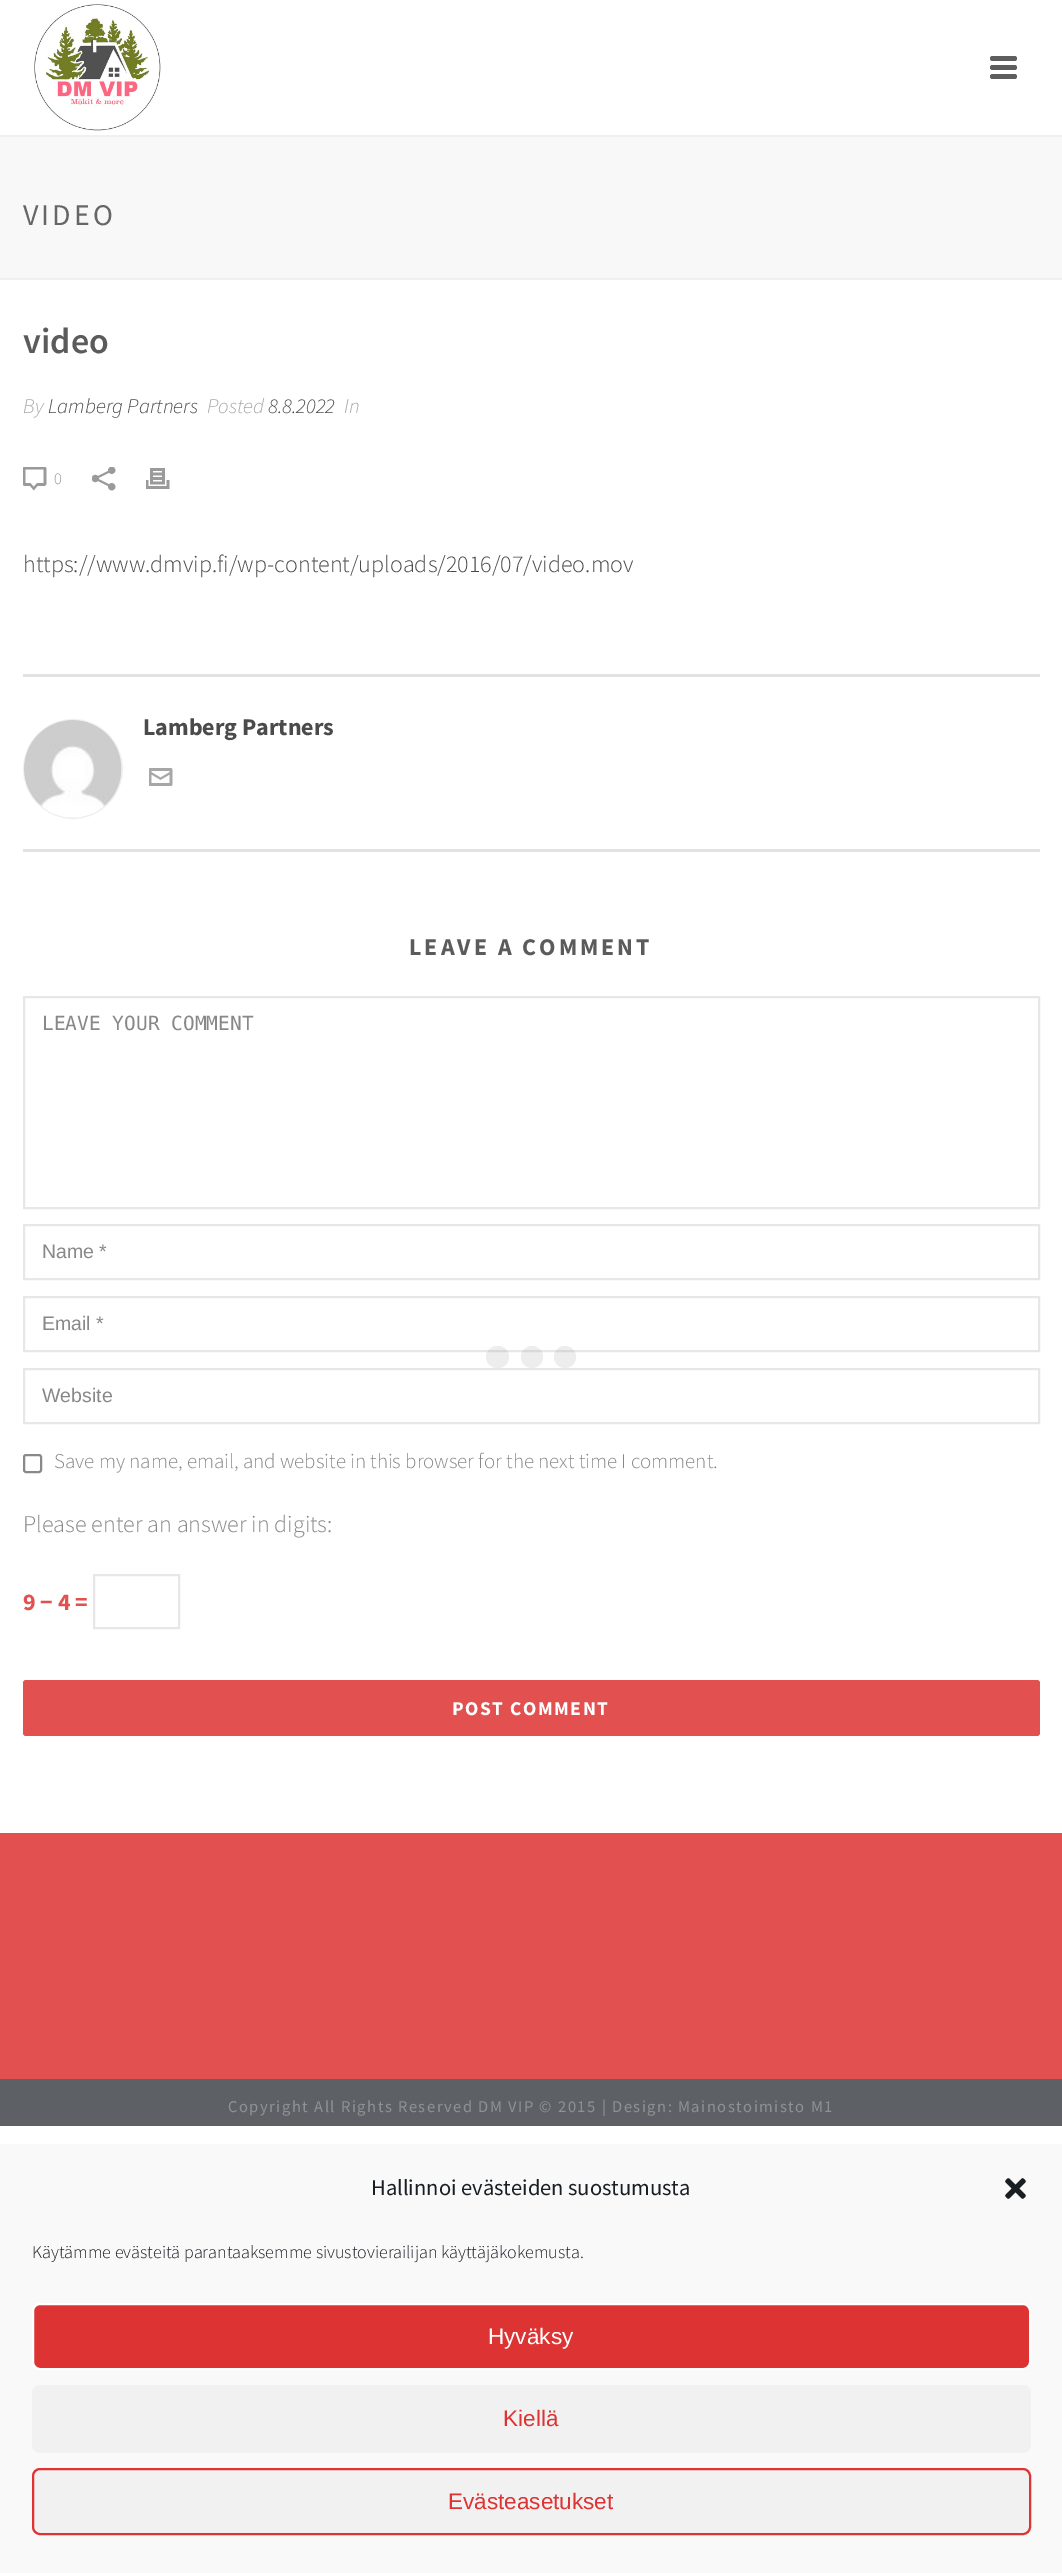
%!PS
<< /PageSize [1062 2573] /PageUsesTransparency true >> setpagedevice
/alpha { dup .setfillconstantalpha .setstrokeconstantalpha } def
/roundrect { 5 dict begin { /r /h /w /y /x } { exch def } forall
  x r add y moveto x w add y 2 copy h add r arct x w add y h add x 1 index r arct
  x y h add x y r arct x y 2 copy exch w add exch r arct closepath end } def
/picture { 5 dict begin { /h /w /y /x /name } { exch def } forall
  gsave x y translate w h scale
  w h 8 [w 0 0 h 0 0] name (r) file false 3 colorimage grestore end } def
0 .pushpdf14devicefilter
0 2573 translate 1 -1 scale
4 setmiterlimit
1 setgray
0 0 1062 2573 rectfill
0.973 setgray
0 137 1062 141 rectfill
0.941 setgray
0 278 1062 2 rectfill
0 135 1062 2 rectfill
(img1.rgb) 34 4 127 127 picture
0.369 setgray
990 56 27 5 2.5 roundrect fill
990 65 27 5 2.5 roundrect fill
990 74 27 5 2.5 roundrect fill
/SourceSansPro-Regular [30 0 0 -30 0 0] selectfont
0.4 setgray
23 225 moveto 3 0 (VIDEO) ashow
/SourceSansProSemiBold-SemiBold [36 0 0 -36 0 0] selectfont
0.357 setgray
23 353 moveto (video) show
/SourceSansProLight-LightItalic [21 0 0 -21 0 0] selectfont
0.655 setgray
23 413 moveto (By) show
0.294 setgray
48 413 moveto (Lamberg Partners) show
0.655 setgray
207 413 moveto (Posted) show
0.294 setgray
268 413 moveto (8.8.2022) show
0.655 setgray
344 413 moveto (In) show
(img2.rgb) 23 467 24 24 picture
/SourceSansProLight-Light [16.5 0 0 -16.5 0 0] selectfont
0.604 setgray
54 484 moveto (0) show
(img3.rgb) 92 467 24 24 picture
(img4.rgb) 146 468 24 21 picture
/SourceSansProLight-Light [24 0 0 -24 0 0] selectfont
0.294 setgray
23 572 moveto (https://www.dmvip.fi/wp-content/uploads/2016/07/video.mov) show
0.886 setgray
23 674 1017 3 rectfill
23 849 1017 3 rectfill
0.941 setgray
2 setlinewidth
newpath 73 769 49 0 360 arc closepath stroke
(img5.rgb) 24 720 98 98 picture
/SourceSansPro-Bold [24 0 0 -24 0 0] selectfont
0.294 setgray
143 735 moveto (Lamberg Partners) show
(img6.rgb) 149 768 24 18 picture
0.357 setgray
409 955 moveto 3 0 (LEAVE A COMMENT) ashow
0.906 setgray
24 997 1015 211 rectstroke
/DejaVuSansMono-Regular [19.5 0 0 -19.5 0 0] selectfont
0.533 setgray
42 1030 moveto (LEAVE YOUR COMMENT) show
0.906 setgray
24 1225 1015 54 rectstroke
/LiberationSans-Regular [19.5 0 0 -19.5 0 0] selectfont
0.533 setgray
42 1258 moveto (Name *) show
0.906 setgray
24 1297 1015 54 rectstroke
0.533 setgray
42 1330 moveto (Email *) show
0.906 setgray
24 1369 1015 54 rectstroke
0.533 setgray
42 1402 moveto (Website) show
0.537 setgray
24 1455 17 17 2 roundrect stroke
/SourceSansProLight-Light [21 0 0 -21 0 0] selectfont
0.533 setgray
54 1468 moveto (Save my name, email, and website in this browser for the next time I comment.) show
/SourceSansProLight-Light [24 0 0 -24 0 0] selectfont
23 1532 moveto (Please enter an answer in digits:) show
/SourceSansPro-Bold [24 0 0 -24 0 0] selectfont
0.886 0.314 0.314 setrgbcolor
23 1610 moveto (9 − 4 =) show
0.906 setgray
94 1575 85 53 rectstroke
0.886 0.314 0.314 setrgbcolor
23 1680 1017 56 3 roundrect fill
/SourceSansPro-Bold [19.5 0 0 -19.5 0 0] selectfont
1 setgray
452 1715 moveto 1.5 0 (POST COMMENT) ashow
0.886 0.314 0.314 setrgbcolor
0 1833 1062 246 rectfill
0.365 0.38 0.4 setrgbcolor
0 2079 1062 47 rectfill
/SourceSansPro-Regular [16.5 0 0 -16.5 0 0] selectfont
0.561 0.573 0.58 setrgbcolor
228 2112 moveto 1.5 0 (Copyright All Rights Reserved DM VIP © 2015 | Design: Mainostoimisto M1) ashow
0.14 alpha
0.486 setgray
486 1346 23 22 11 roundrect fill
newpath 532 1357 11 0 360 arc closepath fill
newpath 565 1357 11 0 360 arc closepath fill
1 alpha
0.976 setgray
0 2144 1062 429 rectfill
/SourceSansPro-Regular [22.5 0 0 -22.5 0 0] selectfont
0.098 0.118 0.137 setrgbcolor
371 2195 moveto (Hallinnoi evästeiden suostumusta) show
(img7.rgb) 1005 2178 21 21 picture
/SourceSansProLight-Light [18 0 0 -18 0 0] selectfont
32 2258 moveto (Käytämme evästeitä parantaaksemme sivustovierailijan käyttäjäkokemusta.) show
0.867 0.2 0.2 setrgbcolor
33 2304 997 65 7 roundrect gsave fill grestore
1 setgray
stroke
/LiberationSans-Regular [22.5 0 0 -22.5 0 0] selectfont
488 2344 moveto (Hyväksy) show
0.945 setgray
32 2385 999 68 8 roundrect fill
0.867 0.2 0.2 setrgbcolor
503 2426 moveto (Kiellä) show
0.945 setgray
33 2469 997 65 7 roundrect gsave fill grestore
0.867 0.2 0.2 setrgbcolor
stroke
448 2509 moveto (Evästeasetukset) show
.poppdf14devicefilter showpage
